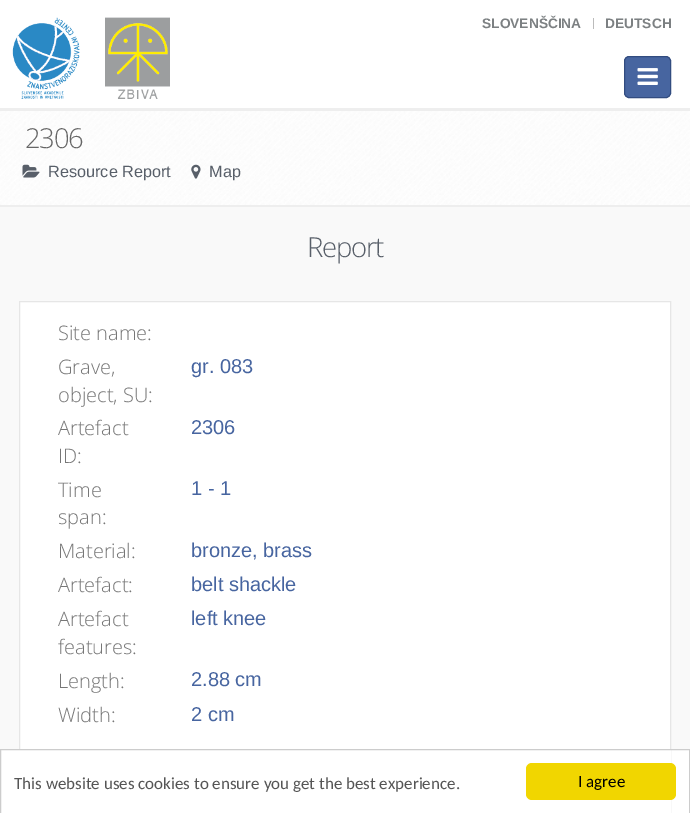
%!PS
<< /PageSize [690 813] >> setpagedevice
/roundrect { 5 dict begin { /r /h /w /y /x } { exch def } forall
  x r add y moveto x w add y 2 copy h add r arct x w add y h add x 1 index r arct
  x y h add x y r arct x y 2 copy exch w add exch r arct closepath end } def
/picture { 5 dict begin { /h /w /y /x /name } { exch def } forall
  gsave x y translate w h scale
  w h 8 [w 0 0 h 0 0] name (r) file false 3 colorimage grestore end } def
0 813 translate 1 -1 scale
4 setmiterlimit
1 setgray
0 0 690 813 rectfill
0.933 setgray
0 108 690 3 rectfill
/LiberationSans-Bold [13.75 0 0 -13.75 0 0] selectfont
0.486 0.502 0.51 setrgbcolor
482 28 moveto (SLOVENŠČINA) show
0.733 setgray
593 18 1 11 rectfill
0.486 0.502 0.51 setrgbcolor
605 28 moveto (DEUTSCH) show
(img1.rgb) 12 17 68 82 picture
(img2.rgb) 105 17 65 82 picture
0.278 0.396 0.627 setrgbcolor
624.5 56.5 46 41 4.5 roundrect gsave fill grestore
0.196 0.298 0.502 setrgbcolor
stroke
(img3.rgb) 637 68 21 17 picture
(img4.rgb) 0 111 690 94 picture
0.933 setgray
0 205 690 2 rectfill
/OpenSans-Light [27.5 0 0 -27.5 0 0] selectfont
0.4 setgray
25 148 moveto -1.25 0 (2306) ashow
(img5.rgb) 22 164 18 14 picture
/LiberationSans-Regular [16.25 0 0 -16.25 0 0] selectfont
0.345 0.373 0.412 setrgbcolor
48 177 moveto (Resource Report) show
(img6.rgb) 191 164 10 15 picture
209 177 moveto (Map) show
0.976 setgray
0 207 690 542 rectfill
/OpenSans-Light [27.5 0 0 -27.5 0 0] selectfont
0.345 0.373 0.412 setrgbcolor
307 257 moveto -1.25 0 (Report) ashow
1 setgray
20 302 650 447 rectfill
0.902 setgray
19.5 301.5 651 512 rectstroke
/OpenSans-Light [20 0 0 -20 0 0] selectfont
0.467 setgray
58 340 moveto (Site name:) show
58 374 moveto (Grave,) show
58 402 moveto (object, SU:) show
/LiberationSans-Regular [20 0 0 -20 0 0] selectfont
0.278 0.396 0.627 setrgbcolor
191 373 moveto (gr. 083) show
/OpenSans-Light [20 0 0 -20 0 0] selectfont
0.467 setgray
58 435 moveto (Artefact) show
58 463 moveto (ID:) show
/LiberationSans-Regular [20 0 0 -20 0 0] selectfont
0.278 0.396 0.627 setrgbcolor
191 434 moveto (2306) show
/OpenSans-Light [20 0 0 -20 0 0] selectfont
0.467 setgray
58 497 moveto (Time) show
58 524 moveto (span:) show
/LiberationSans-Regular [20 0 0 -20 0 0] selectfont
0.278 0.396 0.627 setrgbcolor
191 495 moveto (1 - 1) show
/OpenSans-Light [20 0 0 -20 0 0] selectfont
0.467 setgray
58 558 moveto (Material:) show
/LiberationSans-Regular [20 0 0 -20 0 0] selectfont
0.278 0.396 0.627 setrgbcolor
191 557 moveto (bronze, brass) show
/OpenSans-Light [20 0 0 -20 0 0] selectfont
0.467 setgray
58 592 moveto (Artefact:) show
/LiberationSans-Regular [20 0 0 -20 0 0] selectfont
0.278 0.396 0.627 setrgbcolor
191 591 moveto (belt shackle) show
/OpenSans-Light [20 0 0 -20 0 0] selectfont
0.467 setgray
58 626 moveto (Artefact) show
58 654 moveto (features:) show
/LiberationSans-Regular [20 0 0 -20 0 0] selectfont
0.278 0.396 0.627 setrgbcolor
191 625 moveto (left knee) show
/OpenSans-Light [20 0 0 -20 0 0] selectfont
0.467 setgray
58 688 moveto (Length:) show
/LiberationSans-Regular [20 0 0 -20 0 0] selectfont
0.278 0.396 0.627 setrgbcolor
191 686 moveto (2.88 cm) show
/OpenSans-Light [20 0 0 -20 0 0] selectfont
0.467 setgray
58 722 moveto (Width:) show
/LiberationSans-Regular [20 0 0 -20 0 0] selectfont
0.278 0.396 0.627 setrgbcolor
191 721 moveto (2 cm) show
1 setgray
19 750 652 63 rectfill
0.8 setgray
0.5 749.5 689 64 rectstroke
/Carlito-Regular [17 0 0 -17 0 0] selectfont
0.333 setgray
14 789 moveto (This website uses cookies to ensure you get the best experience.) show
0.945 0.839 0 setrgbcolor
526 763 150 37 6 roundrect fill
0 setgray
578 787 moveto (I agree) show
showpage
